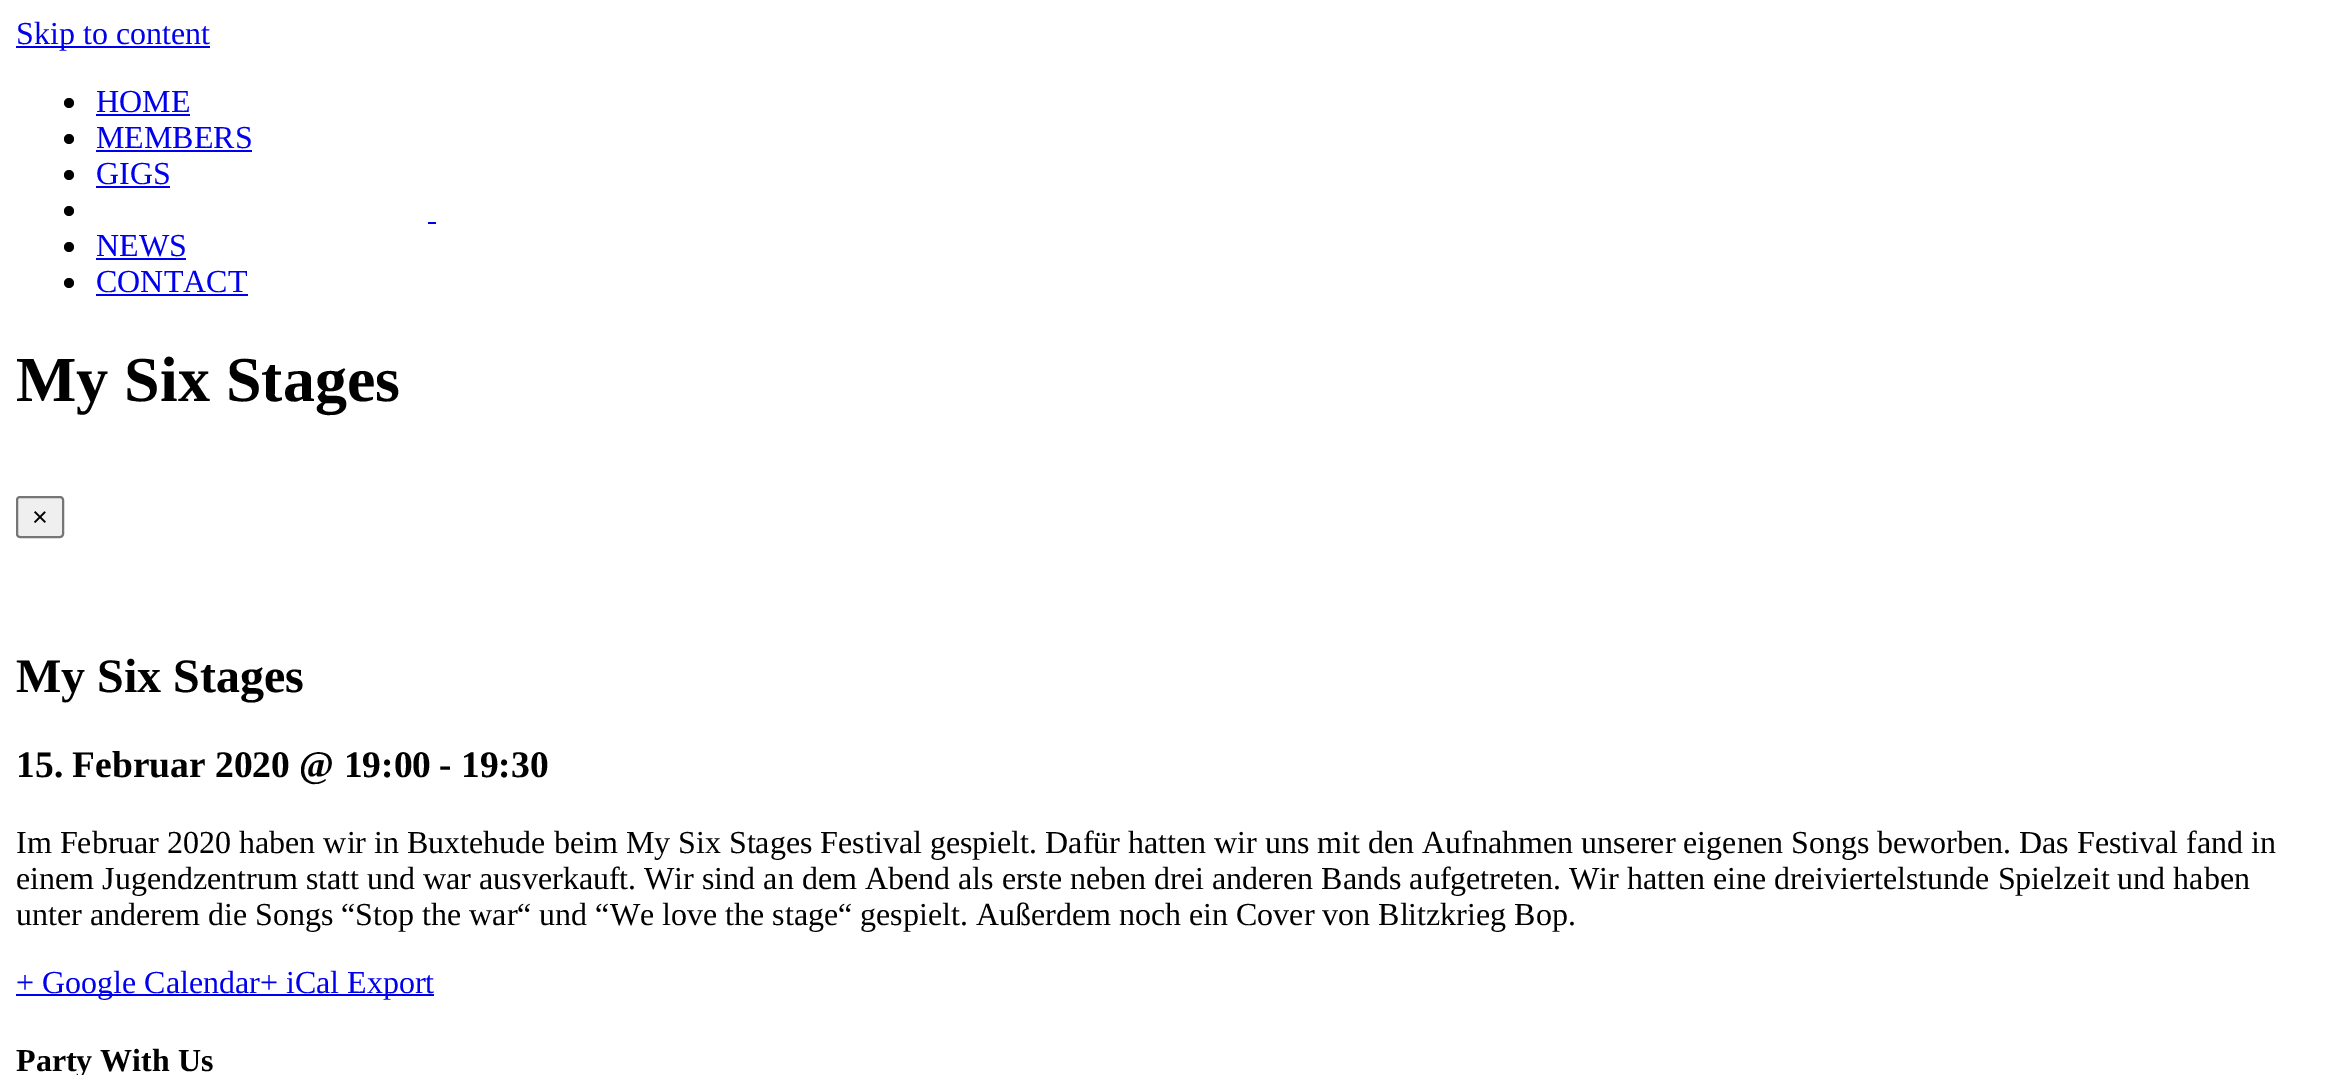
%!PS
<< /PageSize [2338 1075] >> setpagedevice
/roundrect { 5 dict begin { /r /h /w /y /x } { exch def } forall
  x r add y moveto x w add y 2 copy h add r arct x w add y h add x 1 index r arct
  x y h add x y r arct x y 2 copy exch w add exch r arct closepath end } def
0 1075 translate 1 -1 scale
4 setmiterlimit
1 setgray
0 0 2338 1075 rectfill
0 0 0.933 setrgbcolor
16 46 194 2 rectfill
/LiberationSerif-Regular [32 0 0 -32 0 0] selectfont
16 44 moveto (Skip to content) show
0 setgray
newpath 69 103 5 0 360 arc closepath fill
0 0 0.933 setrgbcolor
96 112 moveto (HOME) show
96 114 94 2 rectfill
0 setgray
newpath 69 139 5 0 360 arc closepath fill
0 0 0.933 setrgbcolor
96 148 moveto (MEMBERS) show
96 150 156 2 rectfill
0 setgray
newpath 69 175 5 0 360 arc closepath fill
0 0 0.933 setrgbcolor
96 184 moveto (GIGS) show
96 186 74 2 rectfill
0 setgray
newpath 69 211 5 0 360 arc closepath fill
0 0 0.933 setrgbcolor
428 222 8 2 rectfill
0 setgray
newpath 69 247 5 0 360 arc closepath fill
0 0 0.933 setrgbcolor
96 256 moveto (NEWS) show
96 258 90 2 rectfill
0 setgray
newpath 69 283 5 0 360 arc closepath fill
0 0 0.933 setrgbcolor
96 292 moveto (CONTACT) show
96 294 152 2 rectfill
/LiberationSerif-Bold [64 0 0 -64 0 0] selectfont
0 setgray
16 401 moveto (My Six Stages) show
0.937 setgray
17 497 46 40 3 roundrect gsave fill grestore
0.463 setgray
2 setlinewidth
stroke
/LiberationSans-Regular [27 0 0 -27 0 0] selectfont
0 setgray
32 526 moveto (×) show
/LiberationSerif-Bold [48 0 0 -48 0 0] selectfont
16 692 moveto (My Six Stages) show
/LiberationSerif-Bold [37.5 0 0 -37.5 0 0] selectfont
16 777 moveto (15. Februar 2020 @ 19:00) show
439 777 moveto (- 19:30) show
/LiberationSerif-Regular [32 0 0 -32 0 0] selectfont
16 853 moveto (Im Februar 2020 haben wir in Buxtehude beim My Six Stages Festival gespielt. Dafür hatten wir uns mit den Aufnahmen unserer eigenen Songs beworben. Das Festival fand in) show
16 889 moveto (einem Jugendzentrum statt und war ausverkauft. Wir sind an dem Abend als erste neben drei anderen Bands aufgetreten. Wir hatten eine dreiviertelstunde Spielzeit und haben) show
16 925 moveto (unter anderem die Songs “Stop the war“ und “We love the stage“ gespielt. Außerdem noch ein Cover von Blitzkrieg Bop.) show
0 0 0.933 setrgbcolor
16 994 418 2 rectfill
16 993 moveto (+ Google Calendar+ iCal Export) show
/LiberationSerif-Bold [32 0 0 -32 0 0] selectfont
0 setgray
16 1071 moveto (Party With Us) show
showpage
